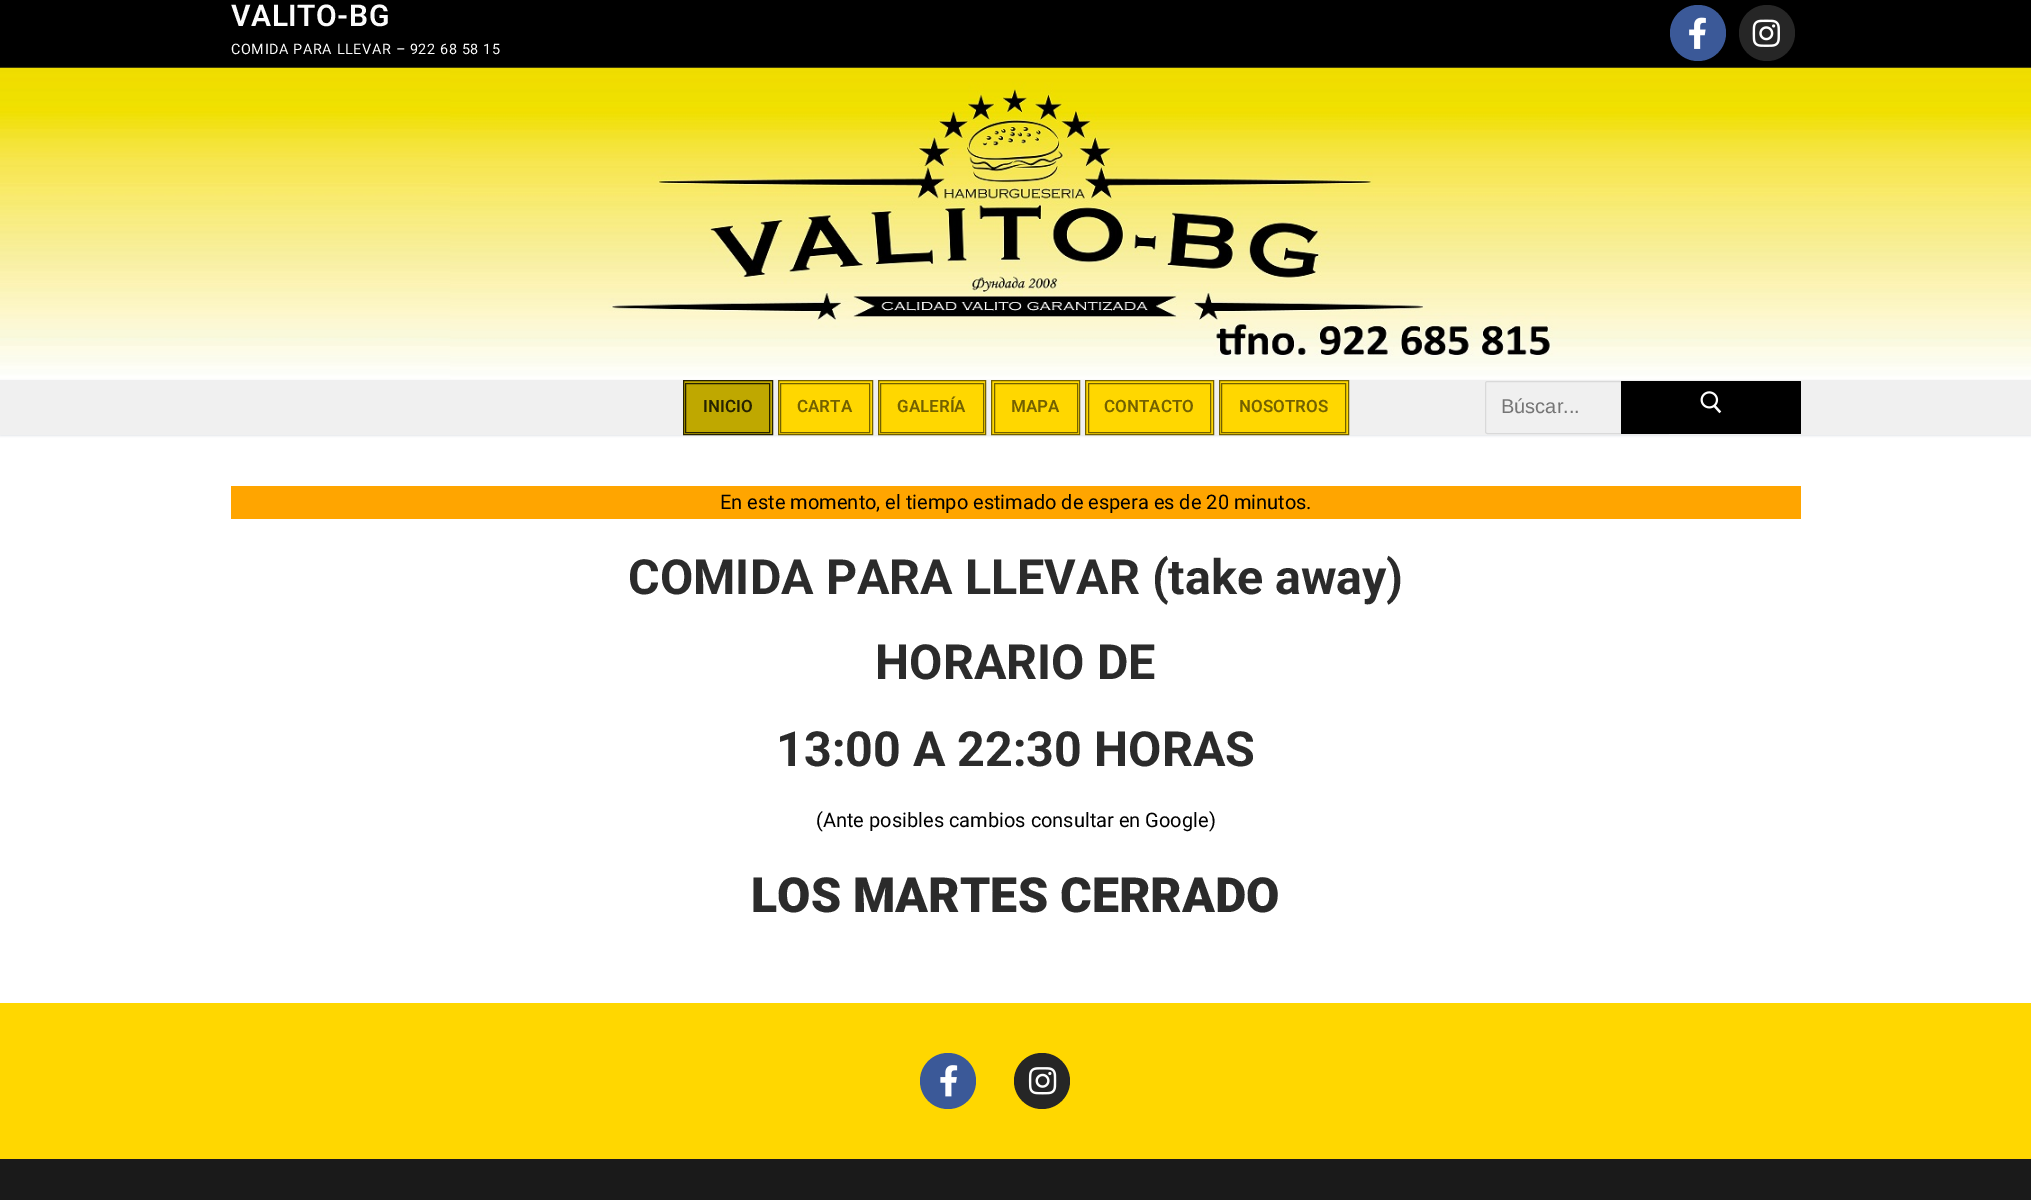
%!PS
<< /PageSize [2031 1200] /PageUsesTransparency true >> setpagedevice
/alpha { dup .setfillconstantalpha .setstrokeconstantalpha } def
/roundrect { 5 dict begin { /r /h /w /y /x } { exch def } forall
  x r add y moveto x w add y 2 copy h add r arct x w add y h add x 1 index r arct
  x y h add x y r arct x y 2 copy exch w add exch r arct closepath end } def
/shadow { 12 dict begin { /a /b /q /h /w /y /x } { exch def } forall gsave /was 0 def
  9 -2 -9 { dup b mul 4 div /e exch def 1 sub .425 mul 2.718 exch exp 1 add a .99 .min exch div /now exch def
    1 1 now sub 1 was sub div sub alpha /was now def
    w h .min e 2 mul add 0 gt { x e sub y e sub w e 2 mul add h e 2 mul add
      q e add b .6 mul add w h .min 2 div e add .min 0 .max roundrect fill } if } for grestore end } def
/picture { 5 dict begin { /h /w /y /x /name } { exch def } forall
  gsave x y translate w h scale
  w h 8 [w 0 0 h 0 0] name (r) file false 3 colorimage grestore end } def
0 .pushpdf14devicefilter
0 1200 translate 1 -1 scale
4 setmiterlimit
1 setgray
0 0 2031 1200 rectfill
0 setgray
0 0 2031 68 rectfill
/Roboto-SemiBold [30 0 0 -30 0 0] selectfont
0.988 setgray
231 26 moveto 0.5 0 (VALITO-BG) ashow
/Roboto-Regular [14.4 0 0 -14.4 0 0] selectfont
231 54 moveto 0.6 0 (COMIDA PARA LLEVAR – 922 68 58 15) ashow
0.231 0.349 0.596 setrgbcolor
newpath 1698 33 28 0 360 arc closepath fill
(img1.rgb) 1689 17 17 32 picture
0.149 setgray
newpath 1767 33 28 0 360 arc closepath fill
(img2.rgb) 1752 19 28 28 picture
0.882 0.898 0.918 setrgbcolor
0 69 2031 312 0 1 1 shadow
(img3.rgb) 0 67 2031 313 picture
0 381 2031 55 0 1 1 shadow
0.941 setgray
0 380 2031 55 rectfill
0.749 0.659 0 setrgbcolor
newpath 683.5 380.5 moveto 772.5 380.5 lineto 772.5 434.5 lineto 683.5 434.5 lineto closepath gsave fill grestore
0.149 0.133 0 setrgbcolor
stroke
685.5 383.5 84 49 rectstroke
/Roboto-SemiBold [17 0 0 -17 0 0] selectfont
703 412 moveto (INICIO) show
1 0.843 0 setrgbcolor
newpath 778.5 380.5 moveto 872.5 380.5 lineto 872.5 434.5 lineto 778.5 434.5 lineto closepath gsave fill grestore
0.451 0.38 0 setrgbcolor
stroke
780.5 383.5 89 49 rectstroke
797 412 moveto (CARTA) show
1 0.843 0 setrgbcolor
newpath 878.5 380.5 moveto 985.5 380.5 lineto 985.5 434.5 lineto 878.5 434.5 lineto closepath gsave fill grestore
0.451 0.38 0 setrgbcolor
stroke
880.5 383.5 103 49 rectstroke
897 412 moveto (GALERÍA) show
1 0.843 0 setrgbcolor
newpath 991.5 380.5 moveto 1079.5 380.5 lineto 1079.5 434.5 lineto 991.5 434.5 lineto closepath gsave fill grestore
0.451 0.38 0 setrgbcolor
stroke
994.5 383.5 83 49 rectstroke
1011 412 moveto (MAPA) show
1 0.843 0 setrgbcolor
newpath 1085.5 380.5 moveto 1213.5 380.5 lineto 1213.5 434.5 lineto 1085.5 434.5 lineto closepath gsave fill grestore
0.451 0.38 0 setrgbcolor
stroke
1088.5 383.5 122 49 rectstroke
1104 412 moveto (CONTACTO) show
1 0.843 0 setrgbcolor
newpath 1219.5 380.5 moveto 1348.5 380.5 lineto 1348.5 434.5 lineto 1219.5 434.5 lineto closepath gsave fill grestore
0.451 0.38 0 setrgbcolor
stroke
1221.5 383.5 124 49 rectstroke
1239 412 moveto (NOSOTROS) show
0.851 setgray
1485.5 381.5 185 52 2 roundrect stroke
/LiberationSans-Regular [20 0 0 -20 0 0] selectfont
0.459 setgray
1501 413 moveto (Búscar...) show
0 setgray
1621 381 180 53 1 roundrect fill
(img4.rgb) 1700 391 22 23 picture
1 0.647 0 setrgbcolor
231 486 1570 33 rectfill
/Roboto-Regular [20 0 0 -20 0 0] selectfont
0 setgray
720 509 moveto (En este momento, el tiempo estimado de espera es de 20 minutos.) show
/Roboto-Bold [48.4 0 0 -48.4 0 0] selectfont
0.169 setgray
628 594 moveto (COMIDA PARA LLEVAR \(take away\)) show
875 679 moveto (HORARIO DE) show
776 766 moveto (13:00 A 22:30 HORAS) show
/Roboto-Regular [20 0 0 -20 0 0] selectfont
0 setgray
816 827 moveto (\(Ante posibles cambios consultar en Google\)) show
/Roboto-Black [48.4 0 0 -48.4 0 0] selectfont
0.169 setgray
751 912 moveto (LOS MARTES CERRADO) show
1 0.843 0 setrgbcolor
0 1003 2031 156 rectfill
0.231 0.349 0.596 setrgbcolor
newpath 948 1081 28 0 360 arc closepath fill
(img5.rgb) 940 1065 18 32 picture
0.149 setgray
newpath 1042 1081 28 0 360 arc closepath fill
(img6.rgb) 1028 1067 29 28 picture
0.102 setgray
0 1159 2031 41 rectfill
.poppdf14devicefilter showpage
